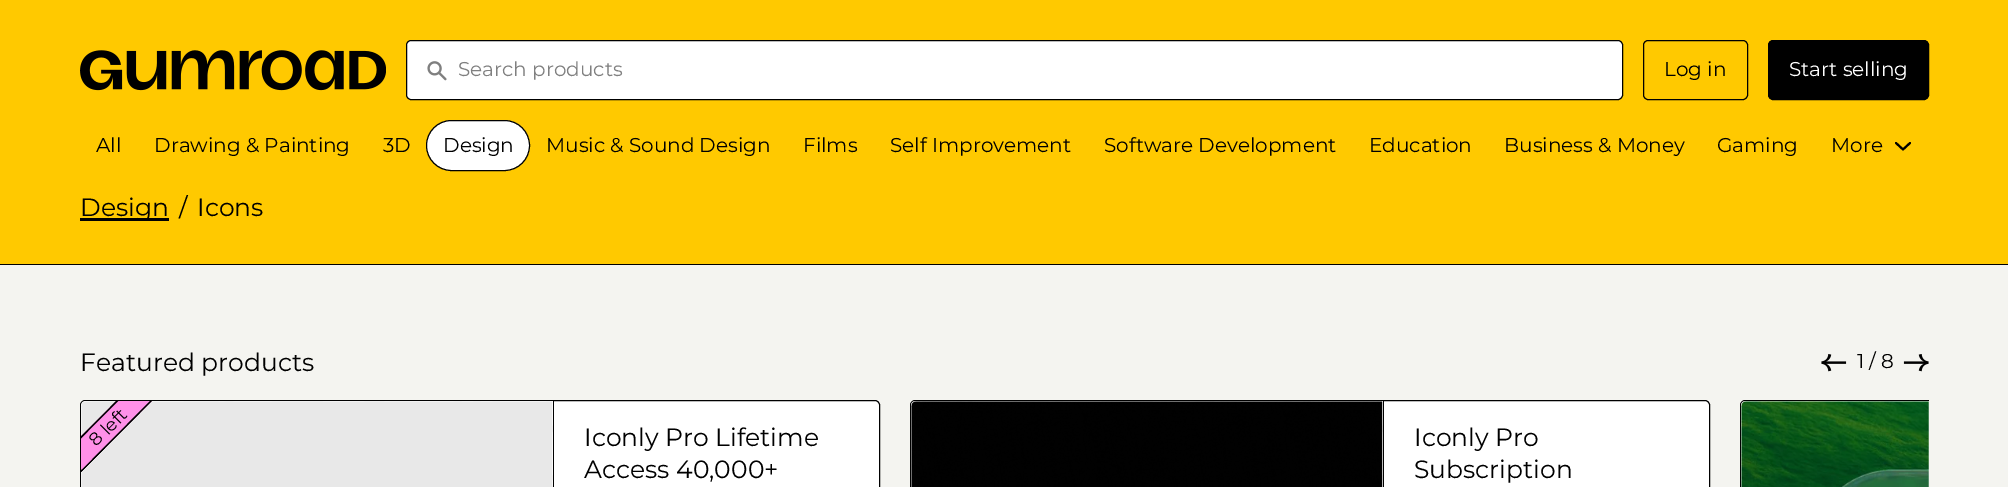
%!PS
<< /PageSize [2008 487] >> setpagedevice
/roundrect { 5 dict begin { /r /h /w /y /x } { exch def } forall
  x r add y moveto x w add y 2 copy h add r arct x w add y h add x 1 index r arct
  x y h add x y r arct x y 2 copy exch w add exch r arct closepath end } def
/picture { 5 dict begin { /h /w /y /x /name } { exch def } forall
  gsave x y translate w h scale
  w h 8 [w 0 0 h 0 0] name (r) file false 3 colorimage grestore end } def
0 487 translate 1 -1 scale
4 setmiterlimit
0.957 0.957 0.941 setrgbcolor
0 0 2008 487 rectfill
1 0.788 0 setrgbcolor
0 0 2008 264 rectfill
0 setgray
0 264 2008 1 rectfill
(img1.rgb) 80 50 306 41 picture
80 70 5 1 rectfill
1 setgray
406.5 40.5 1216 59 4.5 roundrect gsave fill grestore
0 setgray
stroke
(img2.rgb) 427 61 20 20 picture
/Montserrat-Regular [20 0 0 -20 0 0] selectfont
0.502 setgray
458 76 moveto (Search products) show
0 setgray
1643.5 40.5 104 59 4.5 roundrect stroke
1664 76 moveto (Log in) show
1768.5 40.5 160 59 4.5 roundrect gsave fill grestore
stroke
1 setgray
1789 76 moveto (Start selling) show
0 setgray
96 152 moveto (All) show
154 152 moveto (Drawing & Painting) show
383 152 moveto (3D) show
1 setgray
426.5 120.5 103 50 25 roundrect gsave fill grestore
0 setgray
stroke
443 152 moveto (Design) show
546 152 moveto (Music & Sound Design) show
803 152 moveto (Films) show
890 152 moveto (Self Improvement) show
1104 152 moveto (Software Development) show
1369 152 moveto (Education) show
1504 152 moveto (Business & Money) show
1717 152 moveto (Gaming) show
1831 152 moveto (More) show
2 setlinewidth
1 setlinecap
1 setlinejoin
newpath 1910 143 moveto 1903 149.5 lineto 1896 143 lineto stroke
80 218 89 3 rectfill
/Montserrat-Regular [25 0 0 -25 0 0] selectfont
80 216 moveto (Design) show
179 216 moveto (/) show
197 216 moveto (Icons) show
80 371 moveto (Featured products) show
(img3.rgb) 1821 354 26 18 picture
/Montserrat-Regular [20 0 0 -20 0 0] selectfont
1857 368 moveto (1 / 8) show
(img4.rgb) 1903 354 26 18 picture
1 setgray
newpath 85 400 moveto 875 400 lineto 878 400 880 402 880 405 curveto 880 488 lineto 80 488 lineto 80 405 lineto 80 402 82 400 85 400 curveto closepath fill
0 setgray
1 setlinewidth
0 setlinecap
0 setlinejoin
80.5 400.5 799 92 4.5 roundrect stroke
(img5.rgb) 84 401 469 86 picture
553 401 1 86 rectfill
(img6.rgb) 81 401 472 86 picture
1 0.565 0.91 setrgbcolor
newpath 81 436 moveto 81 472 lineto 152 401 lineto 116 401 lineto closepath fill
gsave
newpath 81.5 436 moveto 116.5 401 lineto 152 401 lineto 81.5 471.5 lineto closepath clip newpath
0 setgray
1.3 setlinewidth
newpath 64.5 454 moveto 134 384 lineto 151 401 lineto 81.5 471 lineto closepath stroke
grestore
/Montserrat-Regular [18 0 0 -18 0 0] selectfont
0 setgray
gsave 108 436 translate -45 rotate 0 0 moveto (left) show grestore
gsave 96 447 translate -45 rotate 0 0 moveto (8) show grestore
/Montserrat-Regular [25 0 0 -25 0 0] selectfont
584 446 moveto (Iconly Pro Lifetime) show
584 478 moveto (Access 40,000+) show
1 setgray
newpath 915 400 moveto 1705 400 lineto 1708 400 1710 402 1710 405 curveto 1710 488 lineto 910 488 lineto 910 405 lineto 910 402 912 400 915 400 curveto closepath fill
0 setgray
910.5 400.5 799 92 4.5 roundrect stroke
(img7.rgb) 914 401 469 86 picture
1383 401 1 86 rectfill
(img8.rgb) 911 401 472 86 picture
1414 446 moveto (Iconly Pro) show
1414 478 moveto (Subscription) show
1 setgray
newpath 1745 400 moveto 1929 400 lineto 1929 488 lineto 1740 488 lineto 1740 405 lineto 1740 402 1742 400 1745 400 curveto closepath fill
gsave
80 400 1849 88 rectclip
0 setgray
1740.5 400.5 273 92 4.5 roundrect stroke
grestore
(img9.rgb) 1744 401 149 1 picture
(img10.rgb) 1741 401 188 86 picture
showpage
